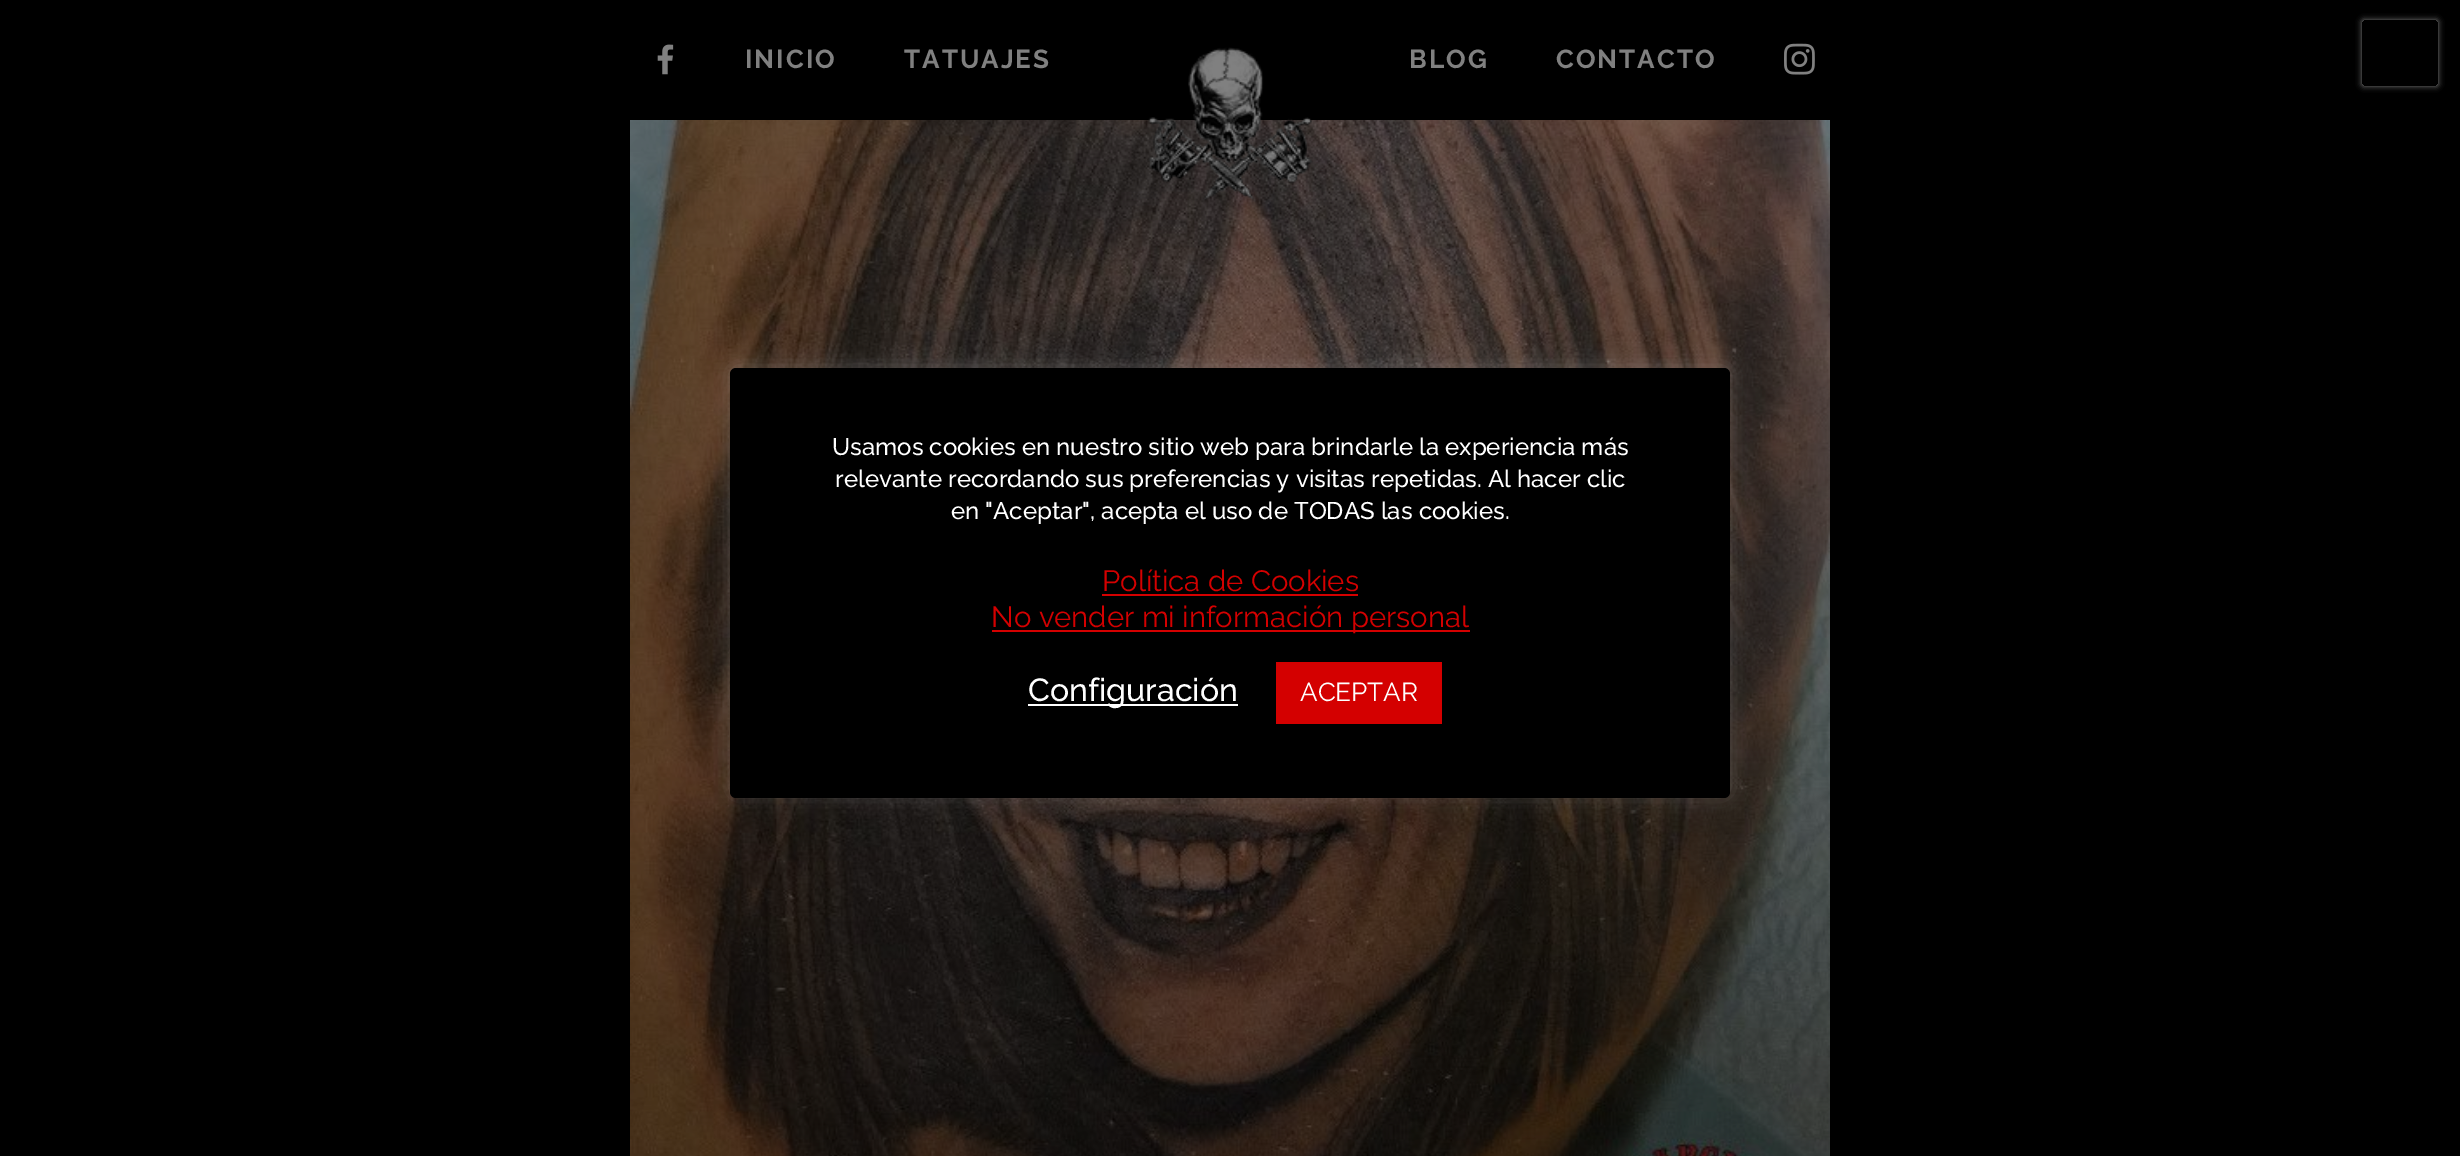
%!PS
<< /PageSize [2460 1156] /PageUsesTransparency true >> setpagedevice
/alpha { dup .setfillconstantalpha .setstrokeconstantalpha } def
/roundrect { 5 dict begin { /r /h /w /y /x } { exch def } forall
  x r add y moveto x w add y 2 copy h add r arct x w add y h add x 1 index r arct
  x y h add x y r arct x y 2 copy exch w add exch r arct closepath end } def
/shadow { 12 dict begin { /a /b /q /h /w /y /x } { exch def } forall gsave /was 0 def
  9 -2 -9 { dup b mul 4 div /e exch def 1 sub .425 mul 2.718 exch exp 1 add a .99 .min exch div /now exch def
    1 1 now sub 1 was sub div sub alpha /was now def
    w h .min e 2 mul add 0 gt { x e sub y e sub w e 2 mul add h e 2 mul add
      q e add b .6 mul add w h .min 2 div e add .min 0 .max roundrect fill } if } for grestore end } def
/picture { 5 dict begin { /h /w /y /x /name } { exch def } forall
  gsave x y translate w h scale
  w h 8 [w 0 0 h 0 0] name (r) file false 3 colorimage grestore end } def
0 .pushpdf14devicefilter
0 1156 translate 1 -1 scale
4 setmiterlimit
0 setgray
0 0 2460 1156 rectfill
(img1.rgb) 657 44 17 31 picture
/Raleway-Bold [26 0 0 -26 0 0] selectfont
0.502 setgray
745 68 moveto 2 0 (INICIO) ashow
904 68 moveto 2 0 (TATUAJES) ashow
(img4.rgb) 630 120 1200 1036 picture
(img2.rgb) 1148 47 165 156 picture
1409 68 moveto 2 0 (BLOG) ashow
1556 68 moveto 2 0 (CONTACTO) ashow
(img3.rgb) 1784 43 31 32 picture
gsave
newpath 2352 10 moveto 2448 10 lineto 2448 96 lineto 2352 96 lineto closepath 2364 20 moveto 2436 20 lineto 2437 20 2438 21 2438 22 curveto 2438 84 lineto 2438 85 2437 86 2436 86 curveto 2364 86 lineto 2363 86 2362 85 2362 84 curveto 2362 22 lineto 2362 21 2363 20 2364 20 curveto closepath eoclip newpath
2362 20 76 66 2 3 1 shadow
grestore
0.675 0.671 0.671 setrgbcolor
730 366 1000 430 6 10 0.3 shadow
0 setgray
730 368 1000 430 6 roundrect fill
/Raleway-Medium [24 0 0 -24 0 0] selectfont
1 setgray
832 455 moveto (Usamos cookies en nuestro sitio web para brindarle la experiencia más) show
835 487 moveto (relevante recordando sus preferencias y visitas repetidas. Al hacer clic) show
951 519 moveto (en "Aceptar", acepta el uso de TODAS las cookies.) show
/Raleway-Regular [29.3 0 0 -29.3 0 0] selectfont
0.831 0 0 setrgbcolor
1102 591 moveto (Política de Cookies) show
1102 594 256 2 rectfill
992 630 478 2 rectfill
991 627 moveto (No vender mi información personal) show
1 setgray
1028 704 210 2 rectfill
/Raleway-Medium [32 0 0 -32 0 0] selectfont
1028 701 moveto (Configuración) show
0.831 0 0 setrgbcolor
1276 662 166 62 rectfill
/Raleway-Regular [26 0 0 -26 0 0] selectfont
1 setgray
1300 701 moveto (ACEPTAR) show
.poppdf14devicefilter showpage
